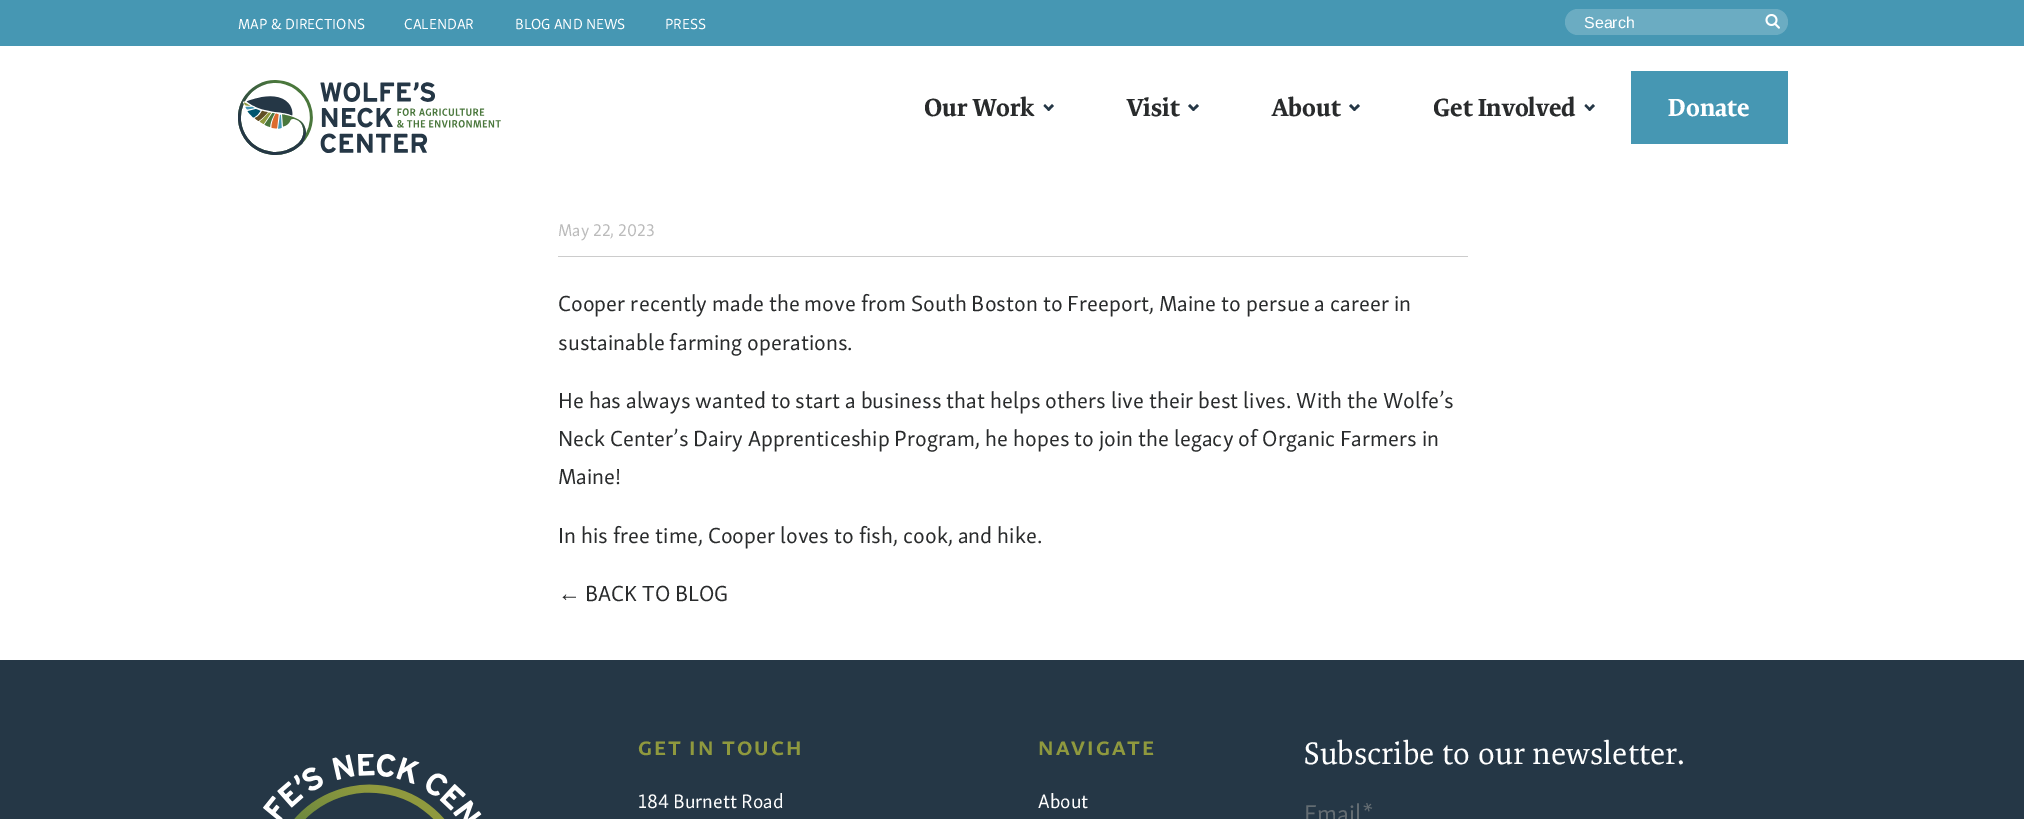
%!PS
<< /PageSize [2024 819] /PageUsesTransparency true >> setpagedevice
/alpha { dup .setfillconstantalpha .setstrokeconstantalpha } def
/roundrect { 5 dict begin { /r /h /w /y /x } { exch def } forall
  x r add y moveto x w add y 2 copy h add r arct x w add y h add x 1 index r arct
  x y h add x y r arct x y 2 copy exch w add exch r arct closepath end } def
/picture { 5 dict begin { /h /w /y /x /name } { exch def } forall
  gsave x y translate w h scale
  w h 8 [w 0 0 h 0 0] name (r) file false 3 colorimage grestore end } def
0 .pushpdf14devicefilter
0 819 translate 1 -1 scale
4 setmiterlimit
1 setgray
0 0 2024 819 rectfill
0.275 0.592 0.702 setrgbcolor
0 0 2024 46 rectfill
/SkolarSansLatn-Regular [15 0 0 -15 0 0] selectfont
1 setgray
238 29 moveto (MAP & DIRECTIONS) show
404 29 moveto (CALENDAR) show
515 29 moveto (BLOG AND NEWS) show
665 29 moveto (PRESS) show
0.2 alpha
1565 9 223 26 13 roundrect fill
/LiberationSans-Regular [16 0 0 -16 0 0] selectfont
1 alpha
1584 28 moveto (Search) show
(img1.rgb) 1765 14 15 15 picture
(img2.rgb) 238 80 263 75 picture
/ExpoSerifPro-Bold [25 0 0 -25 0 0] selectfont
0.161 0.169 0.173 setrgbcolor
924 116 moveto (Our Work) show
0.145 0.216 0.275 setrgbcolor
newpath 1052 104 moveto 1054 106 lineto 1048.5 111 lineto 1047 109.5 lineto closepath fill
newpath 1045 104 moveto 1050.5 109.5 lineto 1048.5 111 lineto 1043.5 106 lineto closepath fill
0.161 0.169 0.173 setrgbcolor
1127 116 moveto (Visit) show
0.145 0.216 0.275 setrgbcolor
newpath 1197 104 moveto 1199 106 lineto 1193.5 111 lineto 1191.5 109.5 lineto closepath fill
newpath 1190 104 moveto 1195 109.5 lineto 1193.5 111 lineto 1188 106 lineto closepath fill
0.161 0.169 0.173 setrgbcolor
1272 116 moveto (About) show
0.145 0.216 0.275 setrgbcolor
newpath 1358 104 moveto 1360 106 lineto 1354.5 111 lineto 1352.5 109.5 lineto closepath fill
newpath 1351 104 moveto 1356 109.5 lineto 1354.5 111 lineto 1349 106 lineto closepath fill
0.161 0.169 0.173 setrgbcolor
1433 116 moveto (Get Involved) show
0.145 0.216 0.275 setrgbcolor
newpath 1593 104 moveto 1595 106 lineto 1589.5 111 lineto 1588 109.5 lineto closepath fill
newpath 1586 104 moveto 1591.5 109.5 lineto 1589.5 111 lineto 1584.5 106 lineto closepath fill
0.275 0.592 0.702 setrgbcolor
1631 71 157 73 rectfill
1 setgray
1668 116 moveto (Donate) show
0.8 setgray
558 256 910 1 rectfill
/SkolarSansLatn-Regular [17.5 0 0 -17.5 0 0] selectfont
0.733 setgray
558 236 moveto (May 22, 2023) show
/SkolarSansLatn-Regular [22.5 0 0 -22.5 0 0] selectfont
0.161 0.169 0.173 setrgbcolor
558 311 moveto (Cooper recently made the move from South Boston to Freeport, Maine to persue a career in) show
558 350 moveto (sustainable farming operations.) show
558 408 moveto (He has always wanted to start a business that helps others live their best lives. With the Wolfe’s) show
558 446 moveto (Neck Center’s Dairy Apprenticeship Program, he hopes to join the legacy of Organic Farmers in) show
558 484 moveto (Maine!) show
558 543 moveto (In his free time, Cooper loves to fish, cook, and hike.) show
/LiberationSans-Regular [22.5 0 0 -22.5 0 0] selectfont
558 601 moveto (←) show
/SkolarSansLatn-Regular [22.5 0 0 -22.5 0 0] selectfont
585 601 moveto (BACK TO BLOG) show
0.145 0.216 0.275 setrgbcolor
0 660 2024 159 rectfill
(img3.rgb) 263 754 219 65 picture
/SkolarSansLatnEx-Bold [20 0 0 -20 0 0] selectfont
0.561 0.6 0.243 setrgbcolor
638 755 moveto 2 0 (GET IN TOUCH) ashow
/SkolarSansLatn-Regular [20 0 0 -20 0 0] selectfont
1 setgray
638 808 moveto (184 Burnett Road) show
/SkolarSansLatnEx-Bold [20 0 0 -20 0 0] selectfont
0.561 0.6 0.243 setrgbcolor
1038 755 moveto 2 0 (NAVIGATE) ashow
/SkolarSansLatn-Regular [20 0 0 -20 0 0] selectfont
1 setgray
1038 808 moveto (About) show
/ExpoSerifPro-Regular [31.25 0 0 -31.25 0 0] selectfont
1304 764 moveto (Subscribe to our newsletter.) show
/SkolarSansLatn-Regular [25 0 0 -25 0 0] selectfont
0.388 0.424 0.447 setrgbcolor
1304 822 moveto (Email*) show
.poppdf14devicefilter showpage
